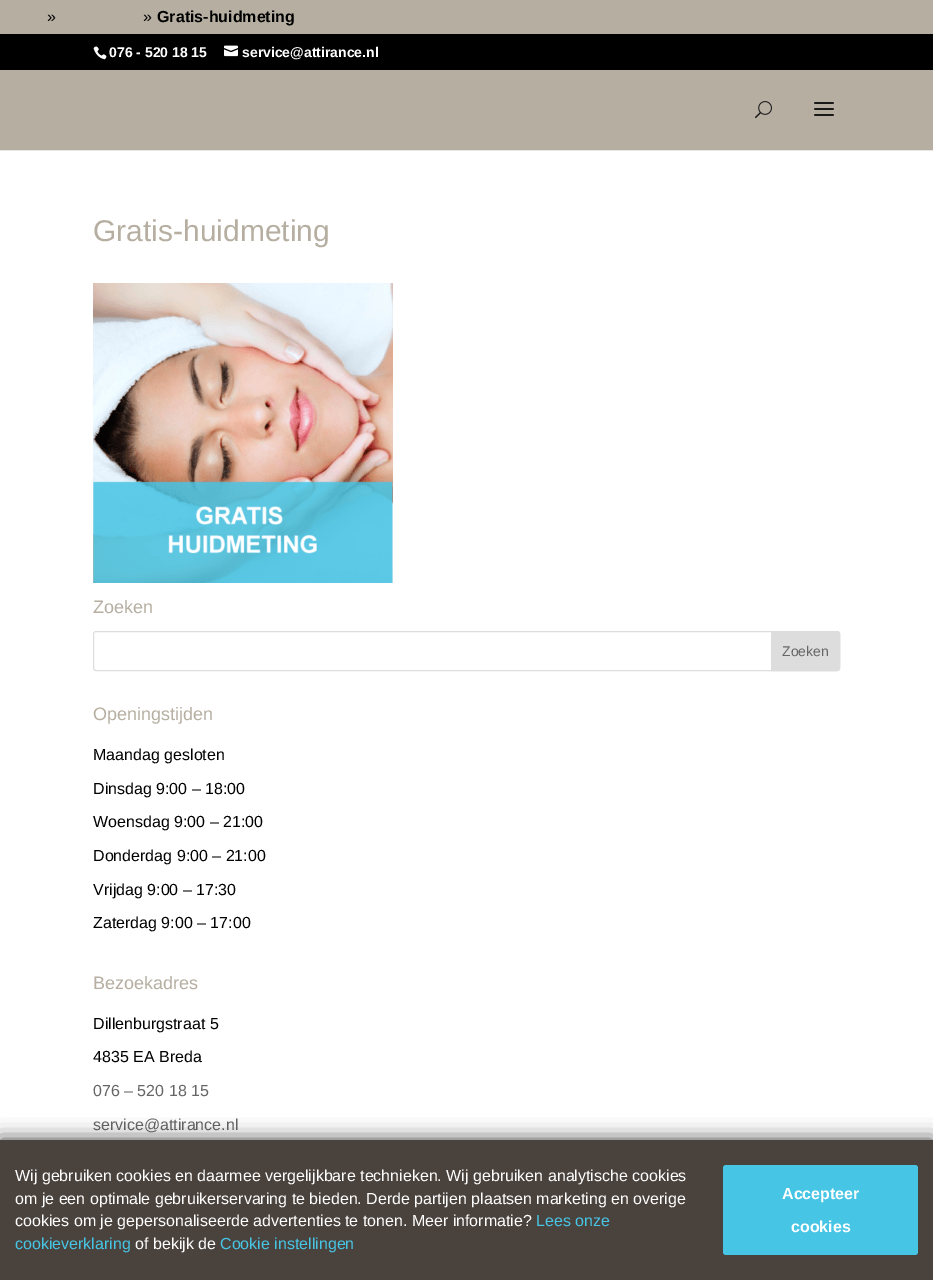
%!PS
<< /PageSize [933 1280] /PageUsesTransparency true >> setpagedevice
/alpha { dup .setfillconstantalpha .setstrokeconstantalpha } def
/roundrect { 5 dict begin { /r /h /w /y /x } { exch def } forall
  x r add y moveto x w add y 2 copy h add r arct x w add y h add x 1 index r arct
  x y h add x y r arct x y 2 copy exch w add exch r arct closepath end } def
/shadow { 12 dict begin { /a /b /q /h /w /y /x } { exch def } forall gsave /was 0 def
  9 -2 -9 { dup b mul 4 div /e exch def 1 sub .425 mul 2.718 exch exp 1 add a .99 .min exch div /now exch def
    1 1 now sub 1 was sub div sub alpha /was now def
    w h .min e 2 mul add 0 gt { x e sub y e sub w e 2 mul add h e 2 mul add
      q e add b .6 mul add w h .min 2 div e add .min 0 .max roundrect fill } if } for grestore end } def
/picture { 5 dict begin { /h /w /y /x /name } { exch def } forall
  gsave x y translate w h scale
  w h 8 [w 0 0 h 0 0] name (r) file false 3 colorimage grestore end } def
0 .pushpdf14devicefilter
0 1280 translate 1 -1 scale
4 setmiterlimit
0.71 0.682 0.631 setrgbcolor
0 0 933 1280 rectfill
/LiberationSans-Regular [16 0 0 -16 0 0] selectfont
0 setgray
47 22 moveto (») show
143 22 moveto (») show
/LiberationSans-Bold [16 0 0 -16 0 0] selectfont
157 22 moveto (Gratis-huidmeting) show
0 34 933 36 rectfill
(img1.rgb) 93 46 14 14 picture
/LiberationSans-Bold [14 0 0 -14 0 0] selectfont
1 setgray
109 57 moveto (076 - 520 18 15) show
(img2.rgb) 224 45 14 12 picture
242 57 moveto (service@attirance.nl) show
0.902 setgray
0 150 933 1 rectfill
(img3.rgb) 755 101 17 18 picture
(img4.rgb) 814 102 20 14 picture
1 setgray
0 151 933 989 rectfill
/LiberationSans-Regular [30 0 0 -30 0 0] selectfont
0.71 0.682 0.631 setrgbcolor
93 241 moveto (Gratis-huidmeting) show
(img5.rgb) 93 283 300 300 picture
/LiberationSans-Regular [18 0 0 -18 0 0] selectfont
93 613 moveto (Zoeken) show
0.867 setgray
93.5 631.5 746 39 2.5 roundrect stroke
newpath 771.5 631.5 moveto 837 631.5 lineto 838.5 631.5 839.5 632.5 839.5 634 curveto 839.5 668 lineto 839.5 669.5 838.5 670.5 837 670.5 curveto 771.5 670.5 lineto closepath gsave fill grestore
stroke
/LiberationSans-Regular [14 0 0 -14 0 0] selectfont
0.4 setgray
782 656 moveto (Zoeken) show
/LiberationSans-Regular [18 0 0 -18 0 0] selectfont
0.71 0.682 0.631 setrgbcolor
93 720 moveto (Openingstijden) show
/LiberationSans-Regular [16 0 0 -16 0 0] selectfont
0 setgray
93 760 moveto (Maandag gesloten) show
93 794 moveto (Dinsdag 9:00 – 18:00) show
93 827 moveto (Woensdag 9:00 – 21:00) show
93 861 moveto (Donderdag 9:00 – 21:00) show
93 895 moveto (Vrijdag 9:00 – 17:30) show
93 928 moveto (Zaterdag 9:00 – 17:00) show
/LiberationSans-Regular [18 0 0 -18 0 0] selectfont
0.71 0.682 0.631 setrgbcolor
93 989 moveto (Bezoekadres) show
/LiberationSans-Regular [16 0 0 -16 0 0] selectfont
0 setgray
93 1029 moveto (Dillenburgstraat 5) show
93 1062 moveto (4835 EA Breda) show
0.4 setgray
93 1096 moveto (076 – 520 18 15) show
93 1130 moveto (service@attirance.nl) show
0 setgray
0 1140 933 140 0 10 0.75 shadow
0.29 0.259 0.239 setrgbcolor
0 1140 933 140 rectfill
1 setgray
15 1181 moveto (Wij gebruiken cookies en daarmee vergelijkbare technieken. Wij gebruiken analytische cookies) show
15 1204 moveto (om je een optimale gebruikerservaring te bieden. Derde partijen plaatsen marketing en overige) show
15 1226 moveto (cookies om je gepersonaliseerde advertenties te tonen. Meer informatie?) show
0.278 0.773 0.898 setrgbcolor
536 1226 moveto (Lees onze) show
15 1249 moveto (cookieverklaring) show
1 setgray
135 1249 moveto (of bekijk de) show
0.278 0.773 0.898 setrgbcolor
220 1249 moveto (Cookie instellingen) show
723 1165 195 90 3 roundrect fill
/LiberationSans-Bold [16 0 0 -16 0 0] selectfont
1 setgray
782 1199 moveto (Accepteer) show
791 1232 moveto (cookies) show
.poppdf14devicefilter showpage
